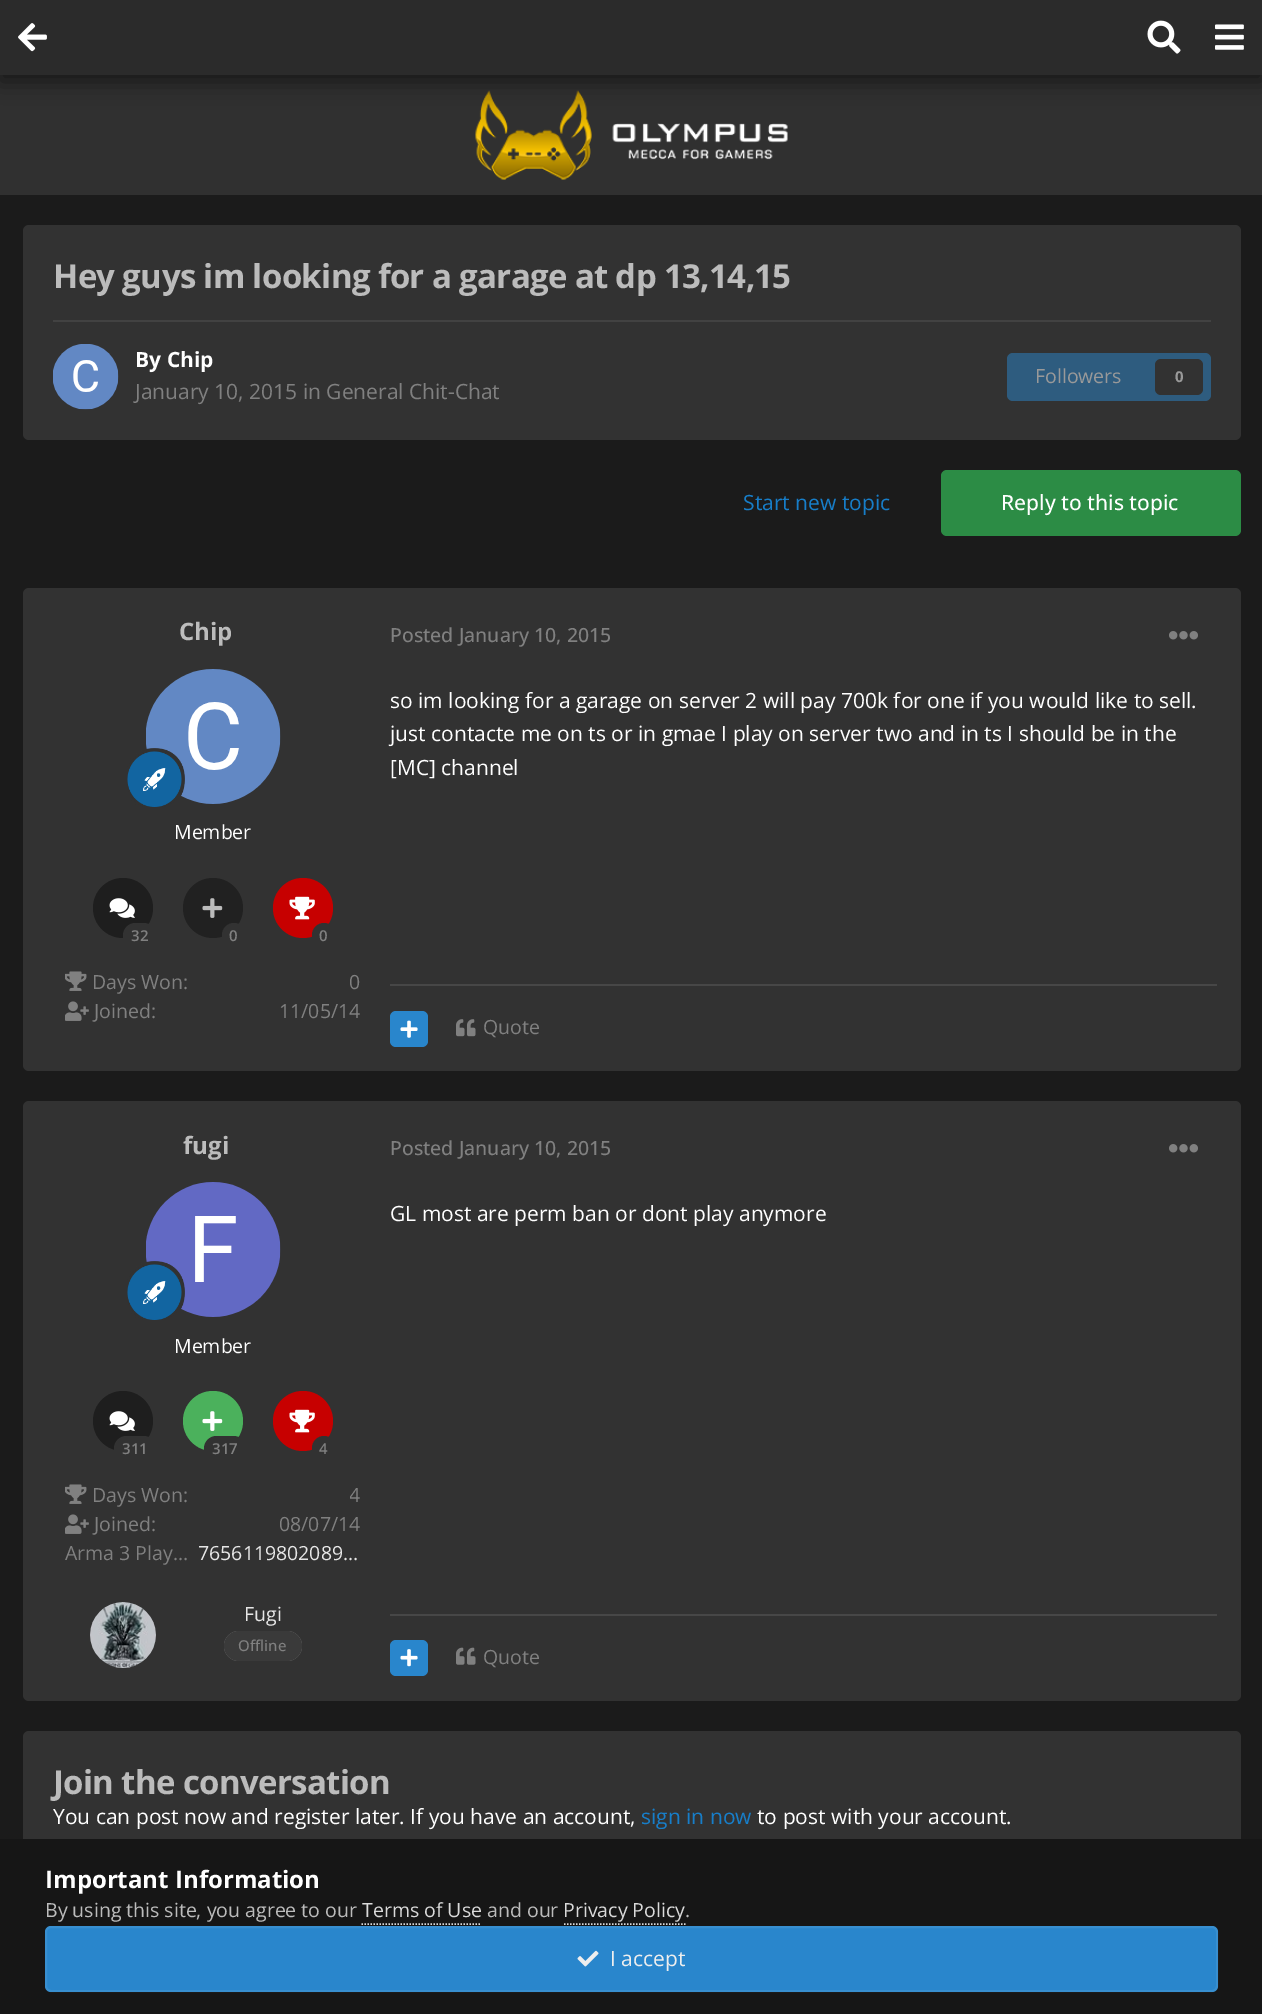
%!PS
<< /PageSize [1262 2014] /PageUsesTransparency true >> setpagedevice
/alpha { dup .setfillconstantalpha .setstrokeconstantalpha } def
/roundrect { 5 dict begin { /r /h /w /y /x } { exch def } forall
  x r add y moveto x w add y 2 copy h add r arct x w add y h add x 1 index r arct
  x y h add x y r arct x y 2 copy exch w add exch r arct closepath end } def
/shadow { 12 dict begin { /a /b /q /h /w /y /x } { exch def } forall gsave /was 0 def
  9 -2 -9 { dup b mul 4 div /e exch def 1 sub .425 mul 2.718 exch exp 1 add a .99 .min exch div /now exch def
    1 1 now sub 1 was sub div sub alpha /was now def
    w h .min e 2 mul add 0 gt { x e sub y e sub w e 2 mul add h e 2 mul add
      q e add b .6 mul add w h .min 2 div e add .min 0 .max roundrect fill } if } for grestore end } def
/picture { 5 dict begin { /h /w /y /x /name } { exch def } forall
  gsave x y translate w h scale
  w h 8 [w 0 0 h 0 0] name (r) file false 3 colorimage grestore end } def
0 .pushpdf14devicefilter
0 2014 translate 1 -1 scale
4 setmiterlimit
0.106 setgray
0 0 1262 2014 rectfill
0.188 setgray
0 75 1262 120 rectfill
(img4.rgb) 475 90 313 90 picture
0 setgray
0 6 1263 75 0 11 0.53 shadow
0.169 setgray
0 0 1262 75 rectfill
(img1.rgb) 18 23 29 29 picture
(img2.rgb) 1147 20 34 34 picture
(img3.rgb) 1215 24 29 26 picture
0.196 setgray
23 225 1218 215 6 roundrect fill
/OpenSans-Bold [33 0 0 -33 0 0] selectfont
0.737 setgray
53 288 moveto -0.65 0 (Hey guys im looking for a garage at dp 13,14,15) ashow
0.259 setgray
53 320 1158 2 rectfill
(img5.rgb) 53 344 66 66 picture
/OpenSans-Bold [21 0 0 -21 0 0] selectfont
1 setgray
135 367 moveto (By Chip) show
/OpenSans-Regular [21 0 0 -21 0 0] selectfont
0.502 setgray
135 399 moveto (January 10, 2015 in General Chit-Chat) show
0.18 0.361 0.498 setrgbcolor
1007 353 204 48 6 roundrect fill
/OpenSans-Regular [19.5 0 0 -19.5 0 0] selectfont
0.6 setgray
1035 383 moveto (Followers) show
0.196 setgray
1155 359 48 36 6 roundrect fill
/OpenSans-Bold [15 0 0 -15 0 0] selectfont
0.6 setgray
1175 382 moveto (0) show
/OpenSans-Regular [21 0 0 -21 0 0] selectfont
0.09 0.494 0.788 setrgbcolor
743 510 moveto (Start new topic) show
0.173 0.549 0.271 setrgbcolor
941 470 300 66 6 roundrect fill
/OpenSans-Medium [21 0 0 -21 0 0] selectfont
1 setgray
1001 510 moveto (Reply to this topic) show
0.196 setgray
23 588 1218 483 6 roundrect fill
/OpenSans-Bold [24 0 0 -24 0 0] selectfont
0.737 setgray
179 640 moveto (Chip) show
(img6.rgb) 146 669 135 135 picture
(img7.rgb) 127 748 58 59 picture
/OpenSans-Regular [19.5 0 0 -19.5 0 0] selectfont
1 setgray
174 839 moveto (Member) show
0.118 setgray
newpath 123 908 30 0 360 arc closepath fill
(img8.rgb) 109 898 26 20 picture
0.196 setgray
123 923 33 25 12.5 roundrect fill
/OpenSans-SemiBold [15 0 0 -15 0 0] selectfont
0.502 setgray
131 941 moveto (32) show
0.129 setgray
newpath 213 908 30 0 360 arc closepath fill
(img9.rgb) 202 898 21 20 picture
0.196 setgray
222 923 24 25 12 roundrect fill
0.502 setgray
229 941 moveto (0) show
0.78 0 0 setrgbcolor
newpath 303 908 30 0 360 arc closepath fill
(img10.rgb) 289 896 26 24 picture
0.196 setgray
312 923 24 25 12 roundrect fill
0.502 setgray
319 941 moveto (0) show
(img11.rgb) 65 971 22 20 picture
/OpenSans-Regular [19.5 0 0 -19.5 0 0] selectfont
92 989 moveto (Days Won:) show
gsave
350 968 10 30 rectclip
349 989 moveto (0) show
grestore
(img12.rgb) 65 1001 24 20 picture
94 1018 moveto (Joined:) show
279 1018 moveto (11/05/14) show
/OpenSans-Medium [19.5 0 0 -19.5 0 0] selectfont
390 642 moveto (Posted January 10, 2015) show
(img13.rgb) 1169 631 29 9 picture
/OpenSans-Regular [21 0 0 -21 0 0] selectfont
1 setgray
390 708 moveto (so im looking for a garage on server 2 will pay 700k for one if you would like to sell.) show
390 741 moveto (just contacte me on ts or in gmae I play on server two and in ts I should be in the) show
390 775 moveto ([MC] channel) show
0.278 setgray
390 984 827 2 rectfill
0.161 0.525 0.8 setrgbcolor
390 1011 38 36 6 roundrect fill
(img14.rgb) 400 1020 18 18 picture
(img15.rgb) 456 1019 20 18 picture
/OpenSans-Regular [19.5 0 0 -19.5 0 0] selectfont
0.502 setgray
483 1034 moveto (Quote) show
0.196 setgray
23 1101 1218 600 6 roundrect fill
/OpenSans-Bold [24 0 0 -24 0 0] selectfont
0.737 setgray
183 1154 moveto (fugi) show
(img16.rgb) 146 1182 135 135 picture
(img17.rgb) 127 1261 58 59 picture
/OpenSans-Regular [19.5 0 0 -19.5 0 0] selectfont
1 setgray
174 1353 moveto (Member) show
0.118 setgray
newpath 123 1421 30 0 360 arc closepath fill
(img8.rgb) 109 1411 26 20 picture
0.196 setgray
114 1436 42 25 12.5 roundrect fill
/OpenSans-SemiBold [15 0 0 -15 0 0] selectfont
0.502 setgray
122 1454 moveto (311) show
0.294 0.694 0.361 setrgbcolor
newpath 213 1421 30 0 360 arc closepath fill
(img18.rgb) 202 1411 21 20 picture
0.196 setgray
204 1436 42 25 12.5 roundrect fill
0.502 setgray
212 1454 moveto (317) show
0.78 0 0 setrgbcolor
newpath 303 1421 30 0 360 arc closepath fill
(img10.rgb) 289 1409 26 24 picture
0.196 setgray
312 1436 24 25 12 roundrect fill
0.502 setgray
319 1454 moveto (4) show
(img11.rgb) 65 1484 22 20 picture
/OpenSans-Regular [19.5 0 0 -19.5 0 0] selectfont
92 1502 moveto (Days Won:) show
gsave
350 1481 10 30 rectclip
349 1502 moveto (4) show
grestore
(img12.rgb) 65 1514 24 20 picture
94 1531 moveto (Joined:) show
279 1531 moveto (08/07/14) show
65 1560 moveto (Arma 3 Play…) show
0.902 setgray
198 1560 moveto (7656119802089…) show
(img19.rgb) 90 1602 66 66 picture
244 1621 moveto (Fugi) show
0.502 setgray
224 1631 78 30 15 roundrect fill
0.9 alpha
0.196 setgray
224 1631 78 30 15 roundrect fill
/OpenSans-Medium [15 0 0 -15 0 0] selectfont
1 alpha
0.502 setgray
238 1651 moveto (Offline) show
/OpenSans-Medium [19.5 0 0 -19.5 0 0] selectfont
390 1155 moveto (Posted January 10, 2015) show
(img13.rgb) 1169 1144 29 9 picture
/OpenSans-Regular [21 0 0 -21 0 0] selectfont
1 setgray
390 1221 moveto (GL most are perm ban or dont play anymore) show
0.278 setgray
390 1614 827 2 rectfill
0.161 0.525 0.8 setrgbcolor
390 1640 38 36 6 roundrect fill
(img20.rgb) 400 1649 18 18 picture
(img21.rgb) 456 1647 20 18 picture
/OpenSans-Regular [19.5 0 0 -19.5 0 0] selectfont
0.502 setgray
483 1664 moveto (Quote) show
0.196 setgray
23 1731 1218 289 6 roundrect fill
/OpenSans-Bold [33 0 0 -33 0 0] selectfont
0.737 setgray
53 1794 moveto -0.65 0 (Join the conversation) ashow
/OpenSans-Regular [21 0 0 -21 0 0] selectfont
1 setgray
53 1824 moveto (You can post now and register later. If you have an account,) show
0.09 0.494 0.788 setrgbcolor
641 1824 moveto (sign in now) show
1 setgray
757 1824 moveto (to post with your account.) show
0.086 setgray
0 1839 1262 175 rectfill
/OpenSans-Bold [24 0 0 -24 0 0] selectfont
1 setgray
45 1888 moveto (Important Information) show
/OpenSans-Regular [19.5 0 0 -19.5 0 0] selectfont
0.737 setgray
45 1917 moveto (By using this site, you agree to our) show
0.855 setgray
362 1917 moveto (Terms of Use) show
1.5 setlinewidth
[1.5 1.5] 0 setdash
newpath 361.5 1924 moveto 481.5 1924 lineto stroke
0.737 setgray
487 1917 moveto (and our) show
0.855 setgray
563 1917 moveto (Privacy Policy) show
newpath 564 1924 moveto 685.5 1924 lineto stroke
0.737 setgray
685 1917 moveto (.) show
0.161 0.525 0.8 setrgbcolor
45 1926 1173 66 6 roundrect fill
0.07 alpha
1 setgray
2 setlinewidth
[] 0 setdash
46 1927 1171 64 5 roundrect stroke
1 alpha
(img22.rgb) 577 1950 22 17 picture
/OpenSans-Regular [21 0 0 -21 0 0] selectfont
0.933 setgray
610 1966 moveto (I accept) show
.poppdf14devicefilter showpage
